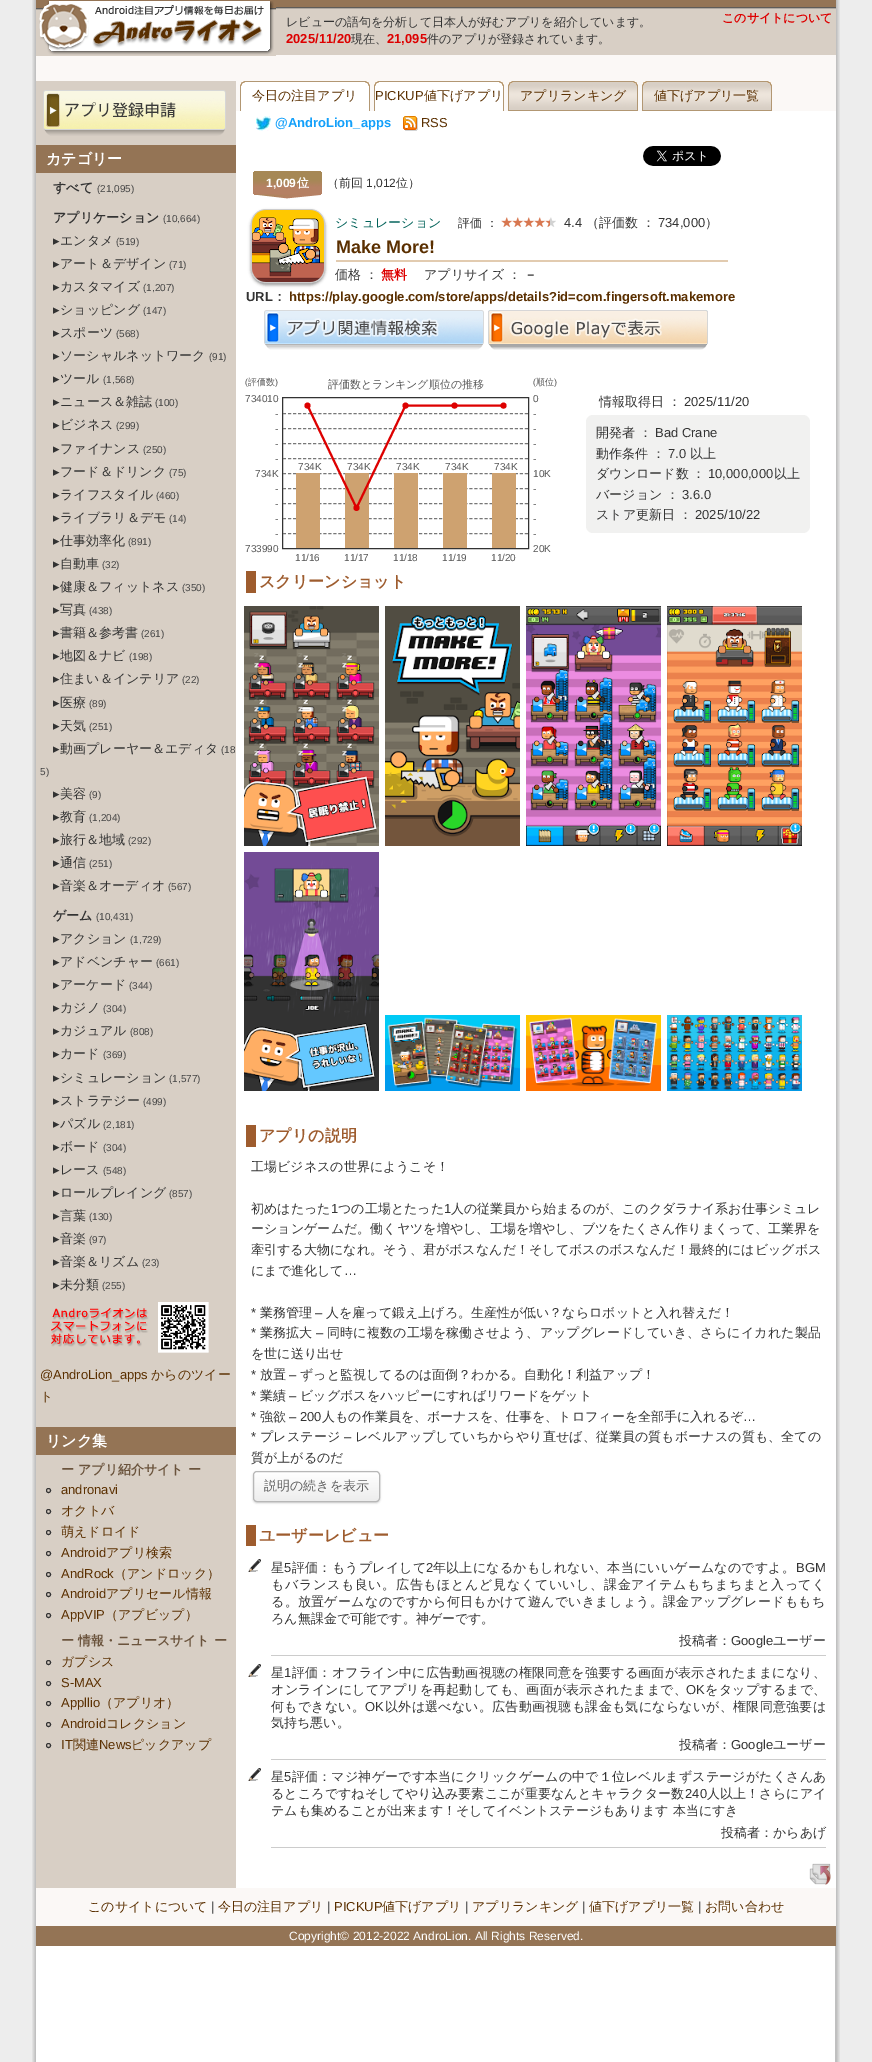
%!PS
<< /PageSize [872 2062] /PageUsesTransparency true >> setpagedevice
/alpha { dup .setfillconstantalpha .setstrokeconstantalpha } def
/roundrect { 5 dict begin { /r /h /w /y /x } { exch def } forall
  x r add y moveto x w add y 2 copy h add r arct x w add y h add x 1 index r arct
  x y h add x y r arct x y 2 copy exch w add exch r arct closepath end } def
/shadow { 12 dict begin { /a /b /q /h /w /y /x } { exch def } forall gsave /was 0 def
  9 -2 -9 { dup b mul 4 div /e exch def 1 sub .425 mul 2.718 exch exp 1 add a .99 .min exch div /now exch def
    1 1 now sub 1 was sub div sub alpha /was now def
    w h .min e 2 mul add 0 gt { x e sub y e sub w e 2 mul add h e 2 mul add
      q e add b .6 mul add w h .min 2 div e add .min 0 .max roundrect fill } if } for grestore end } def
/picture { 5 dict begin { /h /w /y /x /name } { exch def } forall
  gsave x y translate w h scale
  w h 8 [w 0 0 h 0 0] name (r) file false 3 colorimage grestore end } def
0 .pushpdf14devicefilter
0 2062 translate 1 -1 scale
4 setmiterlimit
0.929 setgray
0 0 872 2062 rectfill
(img1.rgb) 32 0 808 2062 picture
0.984 0.973 0.965 setrgbcolor
276 55 560 1 rectfill
(img2.rgb) 36 0 800 55 picture
(img3.rgb) 36 1 240 55 picture
/WenQuanYiZenHei-Medium [12 0 0 -12 0 0] selectfont
0.2 setgray
286 26 moveto (レビューの語句を分析して日本人が好むアプリを紹介しています。) show
/LiberationSans-Bold [13 0 0 -13 0 0] selectfont
0.867 0 0 setrgbcolor
286 43 moveto (2025/11/20) show
/WenQuanYiZenHei-Medium [12 0 0 -12 0 0] selectfont
0.2 setgray
351 43 moveto (現在、) show
/LiberationSans-Bold [13 0 0 -13 0 0] selectfont
0.867 0 0 setrgbcolor
387 43 moveto (21,095) show
/WenQuanYiZenHei-Medium [12 0 0 -12 0 0] selectfont
0.2 setgray
427 43 moveto (件のアプリが登録されています。) show
/WenQuanYiZenHei-Bold [12 0 0 -12 0 0] selectfont
0.867 0 0 setrgbcolor
722 22 moveto (このサイトについて) show
0.984 0.973 0.965 setrgbcolor
36 56 800 25 rectfill
0.847 0.812 0.773 setrgbcolor
36 81 200 64 rectfill
(img4.rgb) 43 90 183 46 picture
1 setgray
835 111 1 1777 rectfill
0.984 0.973 0.965 setrgbcolor
236 81 600 30 rectfill
(img5.rgb) 240 81 130 30 picture
/WenQuanYiZenHei-Medium [13 0 0 -13 0 0] selectfont
0.353 0.184 0 setrgbcolor
252 100 moveto (今日の注目アプリ) show
(img5.rgb) 374 81 130 30 picture
/LiberationSans-Regular [13 0 0 -13 0 0] selectfont
375 100 moveto (PICKUP) show
/WenQuanYiZenHei-Medium [13 0 0 -13 0 0] selectfont
424 100 moveto (値下げアプリ) show
(img6.rgb) 508 81 130 30 picture
520 100 moveto (アプリランキング) show
(img6.rgb) 642 81 130 30 picture
654 100 moveto (値下げアプリ一覧) show
(img7.rgb) 256 116 15 15 picture
/LiberationSans-Bold [13 0 0 -13 0 0] selectfont
0.075 0.627 0.98 setrgbcolor
275 127 moveto (@AndroLion_apps) show
(img8.rgb) 403 116 15 15 picture
/LiberationSans-Regular [13 0 0 -13 0 0] selectfont
0.353 0.184 0 setrgbcolor
421 127 moveto (RSS) show
0.847 0.812 0.773 setrgbcolor
36 173 200 1715 rectfill
0.58 0.455 0.333 setrgbcolor
36 145 200 28 rectfill
/WenQuanYiZenHei-Bold [15 0 0 -15 0 0] selectfont
1 setgray
46 164 moveto (カテゴリー) show
/WenQuanYiZenHei-Bold [13 0 0 -13 0 0] selectfont
0.2 setgray
53 192 moveto (すべて) show
/LiberationSans-Regular [10 0 0 -10 0 0] selectfont
0.267 setgray
97 192 moveto (\(21,095\)) show
/WenQuanYiZenHei-Bold [13 0 0 -13 0 0] selectfont
0.2 setgray
53 222 moveto (アプリケーション) show
/LiberationSans-Regular [10 0 0 -10 0 0] selectfont
0.267 setgray
163 222 moveto (\(10,664\)) show
/DejaVuSans-Regular [13 0 0 -13 0 0] selectfont
0.2 setgray
53 245 moveto (▸) show
/WenQuanYiZenHei-Medium [13 0 0 -13 0 0] selectfont
60 245 moveto (エンタメ) show
/LiberationSans-Regular [10 0 0 -10 0 0] selectfont
0.267 setgray
116 245 moveto (\(519\)) show
/DejaVuSans-Regular [13 0 0 -13 0 0] selectfont
0.2 setgray
53 268 moveto (▸) show
/WenQuanYiZenHei-Medium [13 0 0 -13 0 0] selectfont
60 268 moveto (アート＆デザイン) show
/LiberationSans-Regular [10 0 0 -10 0 0] selectfont
0.267 setgray
169 268 moveto (\(71\)) show
/DejaVuSans-Regular [13 0 0 -13 0 0] selectfont
0.2 setgray
53 291 moveto (▸) show
/WenQuanYiZenHei-Medium [13 0 0 -13 0 0] selectfont
60 291 moveto (カスタマイズ) show
/LiberationSans-Regular [10 0 0 -10 0 0] selectfont
0.267 setgray
143 291 moveto (\(1,207\)) show
/DejaVuSans-Regular [13 0 0 -13 0 0] selectfont
0.2 setgray
53 314 moveto (▸) show
/WenQuanYiZenHei-Medium [13 0 0 -13 0 0] selectfont
60 314 moveto (ショッピング) show
/LiberationSans-Regular [10 0 0 -10 0 0] selectfont
0.267 setgray
143 314 moveto (\(147\)) show
/DejaVuSans-Regular [13 0 0 -13 0 0] selectfont
0.2 setgray
53 337 moveto (▸) show
/WenQuanYiZenHei-Medium [13 0 0 -13 0 0] selectfont
60 337 moveto (スポーツ) show
/LiberationSans-Regular [10 0 0 -10 0 0] selectfont
0.267 setgray
116 337 moveto (\(568\)) show
/DejaVuSans-Regular [13 0 0 -13 0 0] selectfont
0.2 setgray
53 360 moveto (▸) show
/WenQuanYiZenHei-Medium [13 0 0 -13 0 0] selectfont
60 360 moveto (ソーシャルネットワーク) show
/LiberationSans-Regular [10 0 0 -10 0 0] selectfont
0.267 setgray
209 360 moveto (\(91\)) show
/DejaVuSans-Regular [13 0 0 -13 0 0] selectfont
0.2 setgray
53 383 moveto (▸) show
/WenQuanYiZenHei-Medium [13 0 0 -13 0 0] selectfont
60 383 moveto (ツール) show
/LiberationSans-Regular [10 0 0 -10 0 0] selectfont
0.267 setgray
103 383 moveto (\(1,568\)) show
/DejaVuSans-Regular [13 0 0 -13 0 0] selectfont
0.2 setgray
53 406 moveto (▸) show
/WenQuanYiZenHei-Medium [13 0 0 -13 0 0] selectfont
60 406 moveto (ニュース＆雑誌) show
/LiberationSans-Regular [10 0 0 -10 0 0] selectfont
0.267 setgray
155 406 moveto (\(100\)) show
/DejaVuSans-Regular [13 0 0 -13 0 0] selectfont
0.2 setgray
53 429 moveto (▸) show
/WenQuanYiZenHei-Medium [13 0 0 -13 0 0] selectfont
60 429 moveto (ビジネス) show
/LiberationSans-Regular [10 0 0 -10 0 0] selectfont
0.267 setgray
116 429 moveto (\(299\)) show
/DejaVuSans-Regular [13 0 0 -13 0 0] selectfont
0.2 setgray
53 453 moveto (▸) show
/WenQuanYiZenHei-Medium [13 0 0 -13 0 0] selectfont
60 453 moveto (ファイナンス) show
/LiberationSans-Regular [10 0 0 -10 0 0] selectfont
0.267 setgray
143 453 moveto (\(250\)) show
/DejaVuSans-Regular [13 0 0 -13 0 0] selectfont
0.2 setgray
53 476 moveto (▸) show
/WenQuanYiZenHei-Medium [13 0 0 -13 0 0] selectfont
60 476 moveto (フード＆ドリンク) show
/LiberationSans-Regular [10 0 0 -10 0 0] selectfont
0.267 setgray
169 476 moveto (\(75\)) show
/DejaVuSans-Regular [13 0 0 -13 0 0] selectfont
0.2 setgray
53 499 moveto (▸) show
/WenQuanYiZenHei-Medium [13 0 0 -13 0 0] selectfont
60 499 moveto (ライフスタイル) show
/LiberationSans-Regular [10 0 0 -10 0 0] selectfont
0.267 setgray
156 499 moveto (\(460\)) show
/DejaVuSans-Regular [13 0 0 -13 0 0] selectfont
0.2 setgray
53 522 moveto (▸) show
/WenQuanYiZenHei-Medium [13 0 0 -13 0 0] selectfont
60 522 moveto (ライブラリ＆デモ) show
/LiberationSans-Regular [10 0 0 -10 0 0] selectfont
0.267 setgray
169 522 moveto (\(14\)) show
/DejaVuSans-Regular [13 0 0 -13 0 0] selectfont
0.2 setgray
53 545 moveto (▸) show
/WenQuanYiZenHei-Medium [13 0 0 -13 0 0] selectfont
60 545 moveto (仕事効率化) show
/LiberationSans-Regular [10 0 0 -10 0 0] selectfont
0.267 setgray
128 545 moveto (\(891\)) show
/DejaVuSans-Regular [13 0 0 -13 0 0] selectfont
0.2 setgray
53 568 moveto (▸) show
/WenQuanYiZenHei-Medium [13 0 0 -13 0 0] selectfont
60 568 moveto (自動車) show
/LiberationSans-Regular [10 0 0 -10 0 0] selectfont
0.267 setgray
102 568 moveto (\(32\)) show
/DejaVuSans-Regular [13 0 0 -13 0 0] selectfont
0.2 setgray
53 591 moveto (▸) show
/WenQuanYiZenHei-Medium [13 0 0 -13 0 0] selectfont
60 591 moveto (健康＆フィットネス) show
/LiberationSans-Regular [10 0 0 -10 0 0] selectfont
0.267 setgray
182 591 moveto (\(350\)) show
/DejaVuSans-Regular [13 0 0 -13 0 0] selectfont
0.2 setgray
53 614 moveto (▸) show
/WenQuanYiZenHei-Medium [13 0 0 -13 0 0] selectfont
60 614 moveto (写真) show
/LiberationSans-Regular [10 0 0 -10 0 0] selectfont
0.267 setgray
89 614 moveto (\(438\)) show
/DejaVuSans-Regular [13 0 0 -13 0 0] selectfont
0.2 setgray
53 637 moveto (▸) show
/WenQuanYiZenHei-Medium [13 0 0 -13 0 0] selectfont
60 637 moveto (書籍＆参考書) show
/LiberationSans-Regular [10 0 0 -10 0 0] selectfont
0.267 setgray
141 637 moveto (\(261\)) show
/DejaVuSans-Regular [13 0 0 -13 0 0] selectfont
0.2 setgray
53 660 moveto (▸) show
/WenQuanYiZenHei-Medium [13 0 0 -13 0 0] selectfont
60 660 moveto (地図＆ナビ) show
/LiberationSans-Regular [10 0 0 -10 0 0] selectfont
0.267 setgray
129 660 moveto (\(198\)) show
/DejaVuSans-Regular [13 0 0 -13 0 0] selectfont
0.2 setgray
53 683 moveto (▸) show
/WenQuanYiZenHei-Medium [13 0 0 -13 0 0] selectfont
60 683 moveto (住まい＆インテリア) show
/LiberationSans-Regular [10 0 0 -10 0 0] selectfont
0.267 setgray
182 683 moveto (\(22\)) show
/DejaVuSans-Regular [13 0 0 -13 0 0] selectfont
0.2 setgray
53 707 moveto (▸) show
/WenQuanYiZenHei-Medium [13 0 0 -13 0 0] selectfont
60 707 moveto (医療) show
/LiberationSans-Regular [10 0 0 -10 0 0] selectfont
0.267 setgray
89 707 moveto (\(89\)) show
/DejaVuSans-Regular [13 0 0 -13 0 0] selectfont
0.2 setgray
53 730 moveto (▸) show
/WenQuanYiZenHei-Medium [13 0 0 -13 0 0] selectfont
60 730 moveto (天気) show
/LiberationSans-Regular [10 0 0 -10 0 0] selectfont
0.267 setgray
89 730 moveto (\(251\)) show
/DejaVuSans-Regular [13 0 0 -13 0 0] selectfont
0.2 setgray
53 753 moveto (▸) show
/WenQuanYiZenHei-Medium [13 0 0 -13 0 0] selectfont
60 753 moveto (動画プレーヤー＆エディタ) show
/LiberationSans-Regular [10 0 0 -10 0 0] selectfont
0.267 setgray
221 753 moveto (\(18) show
40 775 moveto (5\)) show
/DejaVuSans-Regular [13 0 0 -13 0 0] selectfont
0.2 setgray
53 798 moveto (▸) show
/WenQuanYiZenHei-Medium [13 0 0 -13 0 0] selectfont
60 798 moveto (美容) show
/LiberationSans-Regular [10 0 0 -10 0 0] selectfont
0.267 setgray
89 798 moveto (\(9\)) show
/DejaVuSans-Regular [13 0 0 -13 0 0] selectfont
0.2 setgray
53 821 moveto (▸) show
/WenQuanYiZenHei-Medium [13 0 0 -13 0 0] selectfont
60 821 moveto (教育) show
/LiberationSans-Regular [10 0 0 -10 0 0] selectfont
0.267 setgray
89 821 moveto (\(1,204\)) show
/DejaVuSans-Regular [13 0 0 -13 0 0] selectfont
0.2 setgray
53 844 moveto (▸) show
/WenQuanYiZenHei-Medium [13 0 0 -13 0 0] selectfont
60 844 moveto (旅行＆地域) show
/LiberationSans-Regular [10 0 0 -10 0 0] selectfont
0.267 setgray
128 844 moveto (\(292\)) show
/DejaVuSans-Regular [13 0 0 -13 0 0] selectfont
0.2 setgray
53 867 moveto (▸) show
/WenQuanYiZenHei-Medium [13 0 0 -13 0 0] selectfont
60 867 moveto (通信) show
/LiberationSans-Regular [10 0 0 -10 0 0] selectfont
0.267 setgray
89 867 moveto (\(251\)) show
/DejaVuSans-Regular [13 0 0 -13 0 0] selectfont
0.2 setgray
53 890 moveto (▸) show
/WenQuanYiZenHei-Medium [13 0 0 -13 0 0] selectfont
60 890 moveto (音楽＆オーディオ) show
/LiberationSans-Regular [10 0 0 -10 0 0] selectfont
0.267 setgray
168 890 moveto (\(567\)) show
/WenQuanYiZenHei-Bold [13 0 0 -13 0 0] selectfont
0.2 setgray
53 920 moveto (ゲーム) show
/LiberationSans-Regular [10 0 0 -10 0 0] selectfont
0.267 setgray
96 920 moveto (\(10,431\)) show
/DejaVuSans-Regular [13 0 0 -13 0 0] selectfont
0.2 setgray
53 943 moveto (▸) show
/WenQuanYiZenHei-Medium [13 0 0 -13 0 0] selectfont
60 943 moveto (アクション) show
/LiberationSans-Regular [10 0 0 -10 0 0] selectfont
0.267 setgray
130 943 moveto (\(1,729\)) show
/DejaVuSans-Regular [13 0 0 -13 0 0] selectfont
0.2 setgray
53 966 moveto (▸) show
/WenQuanYiZenHei-Medium [13 0 0 -13 0 0] selectfont
60 966 moveto (アドベンチャー) show
/LiberationSans-Regular [10 0 0 -10 0 0] selectfont
0.267 setgray
156 966 moveto (\(661\)) show
/DejaVuSans-Regular [13 0 0 -13 0 0] selectfont
0.2 setgray
53 989 moveto (▸) show
/WenQuanYiZenHei-Medium [13 0 0 -13 0 0] selectfont
60 989 moveto (アーケード) show
/LiberationSans-Regular [10 0 0 -10 0 0] selectfont
0.267 setgray
129 989 moveto (\(344\)) show
/DejaVuSans-Regular [13 0 0 -13 0 0] selectfont
0.2 setgray
53 1012 moveto (▸) show
/WenQuanYiZenHei-Medium [13 0 0 -13 0 0] selectfont
60 1012 moveto (カジノ) show
/LiberationSans-Regular [10 0 0 -10 0 0] selectfont
0.267 setgray
103 1012 moveto (\(304\)) show
/DejaVuSans-Regular [13 0 0 -13 0 0] selectfont
0.2 setgray
53 1035 moveto (▸) show
/WenQuanYiZenHei-Medium [13 0 0 -13 0 0] selectfont
60 1035 moveto (カジュアル) show
/LiberationSans-Regular [10 0 0 -10 0 0] selectfont
0.267 setgray
130 1035 moveto (\(808\)) show
/DejaVuSans-Regular [13 0 0 -13 0 0] selectfont
0.2 setgray
53 1058 moveto (▸) show
/WenQuanYiZenHei-Medium [13 0 0 -13 0 0] selectfont
60 1058 moveto (カード) show
/LiberationSans-Regular [10 0 0 -10 0 0] selectfont
0.267 setgray
103 1058 moveto (\(369\)) show
/DejaVuSans-Regular [13 0 0 -13 0 0] selectfont
0.2 setgray
53 1082 moveto (▸) show
/WenQuanYiZenHei-Medium [13 0 0 -13 0 0] selectfont
60 1082 moveto (シミュレーション) show
/LiberationSans-Regular [10 0 0 -10 0 0] selectfont
0.267 setgray
169 1082 moveto (\(1,577\)) show
/DejaVuSans-Regular [13 0 0 -13 0 0] selectfont
0.2 setgray
53 1105 moveto (▸) show
/WenQuanYiZenHei-Medium [13 0 0 -13 0 0] selectfont
60 1105 moveto (ストラテジー) show
/LiberationSans-Regular [10 0 0 -10 0 0] selectfont
0.267 setgray
143 1105 moveto (\(499\)) show
/DejaVuSans-Regular [13 0 0 -13 0 0] selectfont
0.2 setgray
53 1128 moveto (▸) show
/WenQuanYiZenHei-Medium [13 0 0 -13 0 0] selectfont
60 1128 moveto (パズル) show
/LiberationSans-Regular [10 0 0 -10 0 0] selectfont
0.267 setgray
103 1128 moveto (\(2,181\)) show
/DejaVuSans-Regular [13 0 0 -13 0 0] selectfont
0.2 setgray
53 1151 moveto (▸) show
/WenQuanYiZenHei-Medium [13 0 0 -13 0 0] selectfont
60 1151 moveto (ボード) show
/LiberationSans-Regular [10 0 0 -10 0 0] selectfont
0.267 setgray
103 1151 moveto (\(304\)) show
/DejaVuSans-Regular [13 0 0 -13 0 0] selectfont
0.2 setgray
53 1174 moveto (▸) show
/WenQuanYiZenHei-Medium [13 0 0 -13 0 0] selectfont
60 1174 moveto (レース) show
/LiberationSans-Regular [10 0 0 -10 0 0] selectfont
0.267 setgray
103 1174 moveto (\(548\)) show
/DejaVuSans-Regular [13 0 0 -13 0 0] selectfont
0.2 setgray
53 1197 moveto (▸) show
/WenQuanYiZenHei-Medium [13 0 0 -13 0 0] selectfont
60 1197 moveto (ロールプレイング) show
/LiberationSans-Regular [10 0 0 -10 0 0] selectfont
0.267 setgray
169 1197 moveto (\(857\)) show
/DejaVuSans-Regular [13 0 0 -13 0 0] selectfont
0.2 setgray
53 1220 moveto (▸) show
/WenQuanYiZenHei-Medium [13 0 0 -13 0 0] selectfont
60 1220 moveto (言葉) show
/LiberationSans-Regular [10 0 0 -10 0 0] selectfont
0.267 setgray
89 1220 moveto (\(130\)) show
/DejaVuSans-Regular [13 0 0 -13 0 0] selectfont
0.2 setgray
53 1243 moveto (▸) show
/WenQuanYiZenHei-Medium [13 0 0 -13 0 0] selectfont
60 1243 moveto (音楽) show
/LiberationSans-Regular [10 0 0 -10 0 0] selectfont
0.267 setgray
89 1243 moveto (\(97\)) show
/DejaVuSans-Regular [13 0 0 -13 0 0] selectfont
0.2 setgray
53 1266 moveto (▸) show
/WenQuanYiZenHei-Medium [13 0 0 -13 0 0] selectfont
60 1266 moveto (音楽＆リズム) show
/LiberationSans-Regular [10 0 0 -10 0 0] selectfont
0.267 setgray
142 1266 moveto (\(23\)) show
/DejaVuSans-Regular [13 0 0 -13 0 0] selectfont
0.2 setgray
53 1289 moveto (▸) show
/WenQuanYiZenHei-Medium [13 0 0 -13 0 0] selectfont
60 1289 moveto (未分類) show
/LiberationSans-Regular [10 0 0 -10 0 0] selectfont
0.267 setgray
102 1289 moveto (\(255\)) show
(img9.rgb) 51 1302 158 51 picture
/LiberationSans-Regular [13 0 0 -13 0 0] selectfont
0.353 0.184 0 setrgbcolor
40 1379 moveto (@AndroLion_apps) show
/WenQuanYiZenHei-Medium [13 0 0 -13 0 0] selectfont
151 1379 moveto (からのツイー) show
40 1401 moveto (ト) show
0.58 0.455 0.333 setrgbcolor
36 1427 200 28 rectfill
/WenQuanYiZenHei-Bold [15 0 0 -15 0 0] selectfont
1 setgray
46 1446 moveto (リンク集) show
/WenQuanYiZenHei-Bold [13 0 0 -13 0 0] selectfont
0.42 0.329 0.239 setrgbcolor
61 1474 moveto (ー アプリ紹介サイト ー) show
0.2 setgray
newpath 48.5 1490.5 2 0 360 arc closepath stroke
/LiberationSans-Regular [13 0 0 -13 0 0] selectfont
0.353 0.184 0 setrgbcolor
61 1494 moveto (andronavi) show
0.2 setgray
newpath 48.5 1511.5 2 0 360 arc closepath stroke
/WenQuanYiZenHei-Medium [13 0 0 -13 0 0] selectfont
0.353 0.184 0 setrgbcolor
61 1515 moveto (オクトバ) show
0.2 setgray
newpath 48.5 1532.5 2 0 360 arc closepath stroke
0.353 0.184 0 setrgbcolor
61 1536 moveto (萌えドロイド) show
0.2 setgray
newpath 48.5 1553.5 2 0 360 arc closepath stroke
/LiberationSans-Regular [13 0 0 -13 0 0] selectfont
0.353 0.184 0 setrgbcolor
61 1557 moveto (Android) show
/WenQuanYiZenHei-Medium [13 0 0 -13 0 0] selectfont
106 1557 moveto (アプリ検索) show
0.2 setgray
newpath 48.5 1574.5 2 0 360 arc closepath stroke
/LiberationSans-Regular [13 0 0 -13 0 0] selectfont
0.353 0.184 0 setrgbcolor
61 1578 moveto (AndRock) show
/WenQuanYiZenHei-Medium [13 0 0 -13 0 0] selectfont
114 1578 moveto (（アンドロック）) show
0.2 setgray
newpath 48.5 1594.5 2 0 360 arc closepath stroke
/LiberationSans-Regular [13 0 0 -13 0 0] selectfont
0.353 0.184 0 setrgbcolor
61 1598 moveto (Android) show
/WenQuanYiZenHei-Medium [13 0 0 -13 0 0] selectfont
106 1598 moveto (アプリセール情報) show
0.2 setgray
newpath 48.5 1615.5 2 0 360 arc closepath stroke
/LiberationSans-Regular [13 0 0 -13 0 0] selectfont
0.353 0.184 0 setrgbcolor
61 1619 moveto (AppVIP) show
/WenQuanYiZenHei-Medium [13 0 0 -13 0 0] selectfont
105 1619 moveto (（アプビップ）) show
/WenQuanYiZenHei-Bold [13 0 0 -13 0 0] selectfont
0.42 0.329 0.239 setrgbcolor
61 1645 moveto (ー 情報・ニュースサイト ー) show
0.2 setgray
newpath 48.5 1662.5 2 0 360 arc closepath stroke
/WenQuanYiZenHei-Medium [13 0 0 -13 0 0] selectfont
0.353 0.184 0 setrgbcolor
61 1666 moveto (ガプシス) show
0.2 setgray
newpath 48.5 1683.5 2 0 360 arc closepath stroke
/LiberationSans-Regular [13 0 0 -13 0 0] selectfont
0.353 0.184 0 setrgbcolor
61 1687 moveto (S-MAX) show
0.2 setgray
newpath 48.5 1703.5 2 0 360 arc closepath stroke
0.353 0.184 0 setrgbcolor
61 1707 moveto (Appllio) show
/WenQuanYiZenHei-Medium [13 0 0 -13 0 0] selectfont
100 1707 moveto (（アプリオ）) show
0.2 setgray
newpath 48.5 1724.5 2 0 360 arc closepath stroke
/LiberationSans-Regular [13 0 0 -13 0 0] selectfont
0.353 0.184 0 setrgbcolor
61 1728 moveto (Android) show
/WenQuanYiZenHei-Medium [13 0 0 -13 0 0] selectfont
106 1728 moveto (コレクション) show
0.2 setgray
newpath 48.5 1745.5 2 0 360 arc closepath stroke
/LiberationSans-Regular [13 0 0 -13 0 0] selectfont
0.353 0.184 0 setrgbcolor
61 1749 moveto (IT) show
/WenQuanYiZenHei-Medium [13 0 0 -13 0 0] selectfont
73 1749 moveto (関連) show
/LiberationSans-Regular [13 0 0 -13 0 0] selectfont
99 1749 moveto (News) show
/WenQuanYiZenHei-Medium [13 0 0 -13 0 0] selectfont
131 1749 moveto (ピックアップ) show
(img10.rgb) 643 146 78 20 picture
(img11.rgb) 253 171 69 28 picture
/LiberationSans-Bold [12 0 0 -12 0 0] selectfont
1 setgray
266 187 moveto (1,009) show
/WenQuanYiZenHei-Bold [12 0 0 -12 0 0] selectfont
297 187 moveto (位) show
/WenQuanYiZenHei-Medium [12 0 0 -12 0 0] selectfont
0.2 setgray
327 187 moveto (（前回) show
/LiberationSans-Regular [12 0 0 -12 0 0] selectfont
366 187 moveto (1,012) show
/WenQuanYiZenHei-Medium [12 0 0 -12 0 0] selectfont
396 187 moveto (位）) show
0 setgray
251 211 74 74 15 1.5 0.4 shadow
0.8 setgray
251.5 209.5 73 73 14.5 roundrect stroke
(img12.rgb) 252 210 72 72 picture
/WenQuanYiZenHei-Medium [13 0 0 -13 0 0] selectfont
0 0.38 0.345 setrgbcolor
335 227 moveto (シミュレーション) show
/WenQuanYiZenHei-Medium [12 0 0 -12 0 0] selectfont
0.2 setgray
458 227 moveto (評価 ：) show
(img13.rgb) 501 217 55 10 picture
/LiberationSans-Regular [13 0 0 -13 0 0] selectfont
564 227 moveto (4.4) show
/WenQuanYiZenHei-Medium [13 0 0 -13 0 0] selectfont
586 227 moveto (（評価数 ：) show
/LiberationSans-Regular [13 0 0 -13 0 0] selectfont
658 227 moveto (734,000) show
/WenQuanYiZenHei-Medium [13 0 0 -13 0 0] selectfont
705 227 moveto (）) show
0.886 0.796 0.69 setrgbcolor
336 260 392 2 rectfill
/LiberationSans-Bold [18 0 0 -18 0 0] selectfont
0.353 0.184 0 setrgbcolor
336 253 moveto (Make More!) show
/WenQuanYiZenHei-Medium [13 0 0 -13 0 0] selectfont
0.2 setgray
335 279 moveto (価格 ：) show
/WenQuanYiZenHei-Bold [13 0 0 -13 0 0] selectfont
0.867 0 0 setrgbcolor
381 279 moveto (無料) show
/WenQuanYiZenHei-Medium [13 0 0 -13 0 0] selectfont
0.2 setgray
424 279 moveto (アプリサイズ ：) show
/WenQuanYiZenHei-Bold [13 0 0 -13 0 0] selectfont
524 279 moveto (－) show
/LiberationSans-Bold [13 0 0 -13 0 0] selectfont
246 301 moveto (URL) show
/WenQuanYiZenHei-Bold [13 0 0 -13 0 0] selectfont
273 301 moveto (：) show
/LiberationSans-Bold [13 0 0 -13 0 0] selectfont
0.353 0.184 0 setrgbcolor
289 301 moveto (https://play.google.com/store/apps/details?id=com.fingersoft.makemore) show
(img14.rgb) 264 310 220 40 picture
(img15.rgb) 488 310 220 40 picture
/LiberationSans-Regular [9 0 0 -9 0 0] selectfont
0.333 setgray
245 385 moveto (\() show
/WenQuanYiZenHei-Medium [9 0 0 -9 0 0] selectfont
248 385 moveto (評価数) show
/LiberationSans-Regular [9 0 0 -9 0 0] selectfont
275 385 moveto (\)) show
/LiberationSans-Regular [10 0 0 -10 0 0] selectfont
245 402 moveto (734010) show
275 417 moveto (-) show
275 432 moveto (-) show
275 447 moveto (-) show
275 462 moveto (-) show
255 477 moveto (734K) show
275 492 moveto (-) show
275 507 moveto (-) show
275 522 moveto (-) show
275 537 moveto (-) show
245 552 moveto (733990) show
/WenQuanYiZenHei-Medium [11 0 0 -11 0 0] selectfont
328 388 moveto (評価数とランキング順位の推移) show
0.2 setgray
282.5 397.5 246 151 rectstroke
0.867 0 0 setrgbcolor
newpath 307.5 405.6 3 0 360 arc closepath fill
0.467 setgray
[3 2.04] 0 setdash
newpath 283 473.5 moveto 528 473.5 lineto stroke
newpath 283 488.5 moveto 528 488.5 lineto stroke
newpath 283 503.5 moveto 528 503.5 lineto stroke
newpath 283 518.5 moveto 528 518.5 lineto stroke
newpath 283 533.5 moveto 528 533.5 lineto stroke
0.808 0.635 0.439 setrgbcolor
345 473 24 75 rectfill
0.867 0 0 setrgbcolor
newpath 356.5 507.9 3 0 360 arc closepath fill
newpath 405.5 405.6 3 0 360 arc closepath fill
newpath 454.5 405.6 3 0 360 arc closepath fill
newpath 503.5 405.6 3 0 360 arc closepath fill
0.467 setgray
newpath 283 413.5 moveto 528 413.5 lineto stroke
newpath 283 428.5 moveto 528 428.5 lineto stroke
newpath 283 443.5 moveto 528 443.5 lineto stroke
newpath 283 458.5 moveto 528 458.5 lineto stroke
/LiberationSans-Regular [10 0 0 -10 0 0] selectfont
0.333 setgray
298 470 moveto (734K) show
347 470 moveto (734K) show
396 470 moveto (734K) show
445 470 moveto (734K) show
494 470 moveto (734K) show
0.808 0.635 0.439 setrgbcolor
296 473 24 75 rectfill
394 473 24 75 rectfill
443 473 24 75 rectfill
492 473 24 75 rectfill
0.867 0 0 setrgbcolor
2 setlinewidth
[] 0 setdash
newpath 307.5 405.5 moveto 356.5 508 lineto 405.5 405.5 lineto 503.5 405.5 lineto stroke
0.333 setgray
295 561 moveto (11/16) show
344 561 moveto (11/17) show
393 561 moveto (11/18) show
442 561 moveto (11/19) show
491 561 moveto (11/20) show
/LiberationSans-Regular [9 0 0 -9 0 0] selectfont
533 385 moveto (\() show
/WenQuanYiZenHei-Medium [9 0 0 -9 0 0] selectfont
536 385 moveto (順位) show
/LiberationSans-Regular [9 0 0 -9 0 0] selectfont
554 385 moveto (\)) show
/LiberationSans-Regular [10 0 0 -10 0 0] selectfont
533 402 moveto (0) show
533 417 moveto (-) show
533 432 moveto (-) show
533 447 moveto (-) show
533 462 moveto (-) show
533 477 moveto (10K) show
533 492 moveto (-) show
533 507 moveto (-) show
533 522 moveto (-) show
533 537 moveto (-) show
533 552 moveto (20K) show
/WenQuanYiZenHei-Medium [13 0 0 -13 0 0] selectfont
0.2 setgray
599 406 moveto (情報取得日 ：) show
/LiberationSans-Regular [13 0 0 -13 0 0] selectfont
684 406 moveto (2025/11/20) show
0.945 0.945 0.941 setrgbcolor
586 415 224 118 7 roundrect fill
/WenQuanYiZenHei-Medium [13 0 0 -13 0 0] selectfont
0.2 setgray
596 437 moveto (開発者 ：) show
/LiberationSans-Regular [13 0 0 -13 0 0] selectfont
655 437 moveto (Bad Crane) show
/WenQuanYiZenHei-Medium [13 0 0 -13 0 0] selectfont
596 458 moveto (動作条件 ：) show
/LiberationSans-Regular [13 0 0 -13 0 0] selectfont
668 458 moveto (7.0) show
/WenQuanYiZenHei-Medium [13 0 0 -13 0 0] selectfont
690 458 moveto (以上) show
596 478 moveto (ダウンロード数 ：) show
/LiberationSans-Regular [13 0 0 -13 0 0] selectfont
708 478 moveto (10,000,000) show
/WenQuanYiZenHei-Medium [13 0 0 -13 0 0] selectfont
774 478 moveto (以上) show
596 499 moveto (バージョン ：) show
/LiberationSans-Regular [13 0 0 -13 0 0] selectfont
682 499 moveto (3.6.0) show
/WenQuanYiZenHei-Medium [13 0 0 -13 0 0] selectfont
596 519 moveto (ストア更新日 ：) show
/LiberationSans-Regular [13 0 0 -13 0 0] selectfont
695 519 moveto (2025/10/22) show
0.62 0.361 0.18 setrgbcolor
246 571 10 22 rectfill
/WenQuanYiZenHei-Bold [16 0 0 -16 0 0] selectfont
259 587 moveto (スクリーンショット) show
(img16.rgb) 244 606 135 240 picture
(img17.rgb) 385 606 135 240 picture
(img18.rgb) 526 606 135 240 picture
(img19.rgb) 667 606 135 240 picture
(img20.rgb) 244 852 135 239 picture
(img21.rgb) 385 1015 135 76 picture
(img22.rgb) 526 1015 135 76 picture
(img23.rgb) 667 1015 135 76 picture
246 1125 10 22 rectfill
259 1141 moveto (アプリの説明) show
/WenQuanYiZenHei-Medium [13 0 0 -13 0 0] selectfont
0.2 setgray
251 1171 moveto (工場ビジネスの世界にようこそ！) show
251 1213 moveto (初めはたった) show
/LiberationSans-Regular [13 0 0 -13 0 0] selectfont
331 1213 moveto (1) show
/WenQuanYiZenHei-Medium [13 0 0 -13 0 0] selectfont
338 1213 moveto (つの工場とたった) show
/LiberationSans-Regular [13 0 0 -13 0 0] selectfont
444 1213 moveto (1) show
/WenQuanYiZenHei-Medium [13 0 0 -13 0 0] selectfont
451 1213 moveto (人の従業員から始まるのが、このクダラナイ系お仕事シミュレ) show
251 1233 moveto 0.05 0 (ーションゲームだ。働くヤツを増やし、工場を増やし、ブツをたくさん作りまくって、工業界を) ashow
251 1254 moveto 0.05 0 (牽引する大物になれ。そう、君がボスなんだ！そしてボスのボスなんだ！最終的にはビッグボス) ashow
251 1275 moveto (にまで進化して) show
/LiberationSans-Regular [13 0 0 -13 0 0] selectfont
344 1275 moveto (…) show
251 1317 moveto (*) show
/WenQuanYiZenHei-Medium [13 0 0 -13 0 0] selectfont
260 1317 moveto (業務管理) show
326 1317 moveto (人を雇って鍛え上げろ。生産性が低い？ならロボットと入れ替えだ！) show
/LiberationSans-Regular [13 0 0 -13 0 0] selectfont
315 1317 moveto (–) show
251 1337 moveto 0.15 0 (*) ashow
/WenQuanYiZenHei-Medium [13 0 0 -13 0 0] selectfont
260 1337 moveto 0.15 0 (業務拡大) ashow
327 1337 moveto 0.15 0 (同時に複数の工場を稼働させよう、アップグレードしていき、さらにイカれた製品) ashow
/LiberationSans-Regular [13 0 0 -13 0 0] selectfont
316 1337 moveto 0.15 0 (–) ashow
/WenQuanYiZenHei-Medium [13 0 0 -13 0 0] selectfont
251 1358 moveto (を世に送り出せ) show
/LiberationSans-Regular [13 0 0 -13 0 0] selectfont
251 1379 moveto (*) show
/WenQuanYiZenHei-Medium [13 0 0 -13 0 0] selectfont
260 1379 moveto (放置) show
300 1379 moveto (ずっと監視してるのは面倒？わかる。自動化！利益アップ！) show
/LiberationSans-Regular [13 0 0 -13 0 0] selectfont
289 1379 moveto (–) show
251 1400 moveto (*) show
/WenQuanYiZenHei-Medium [13 0 0 -13 0 0] selectfont
260 1400 moveto (業績) show
300 1400 moveto (ビッグボスをハッピーにすればリワードをゲット) show
/LiberationSans-Regular [13 0 0 -13 0 0] selectfont
289 1400 moveto (–) show
251 1421 moveto (*) show
/WenQuanYiZenHei-Medium [13 0 0 -13 0 0] selectfont
260 1421 moveto (強欲) show
/LiberationSans-Regular [13 0 0 -13 0 0] selectfont
289 1421 moveto (– 200) show
/WenQuanYiZenHei-Medium [13 0 0 -13 0 0] selectfont
322 1421 moveto (人もの作業員を、ボーナスを、仕事を、トロフィーを全部手に入れるぞ) show
/LiberationSans-Regular [13 0 0 -13 0 0] selectfont
743 1421 moveto (…) show
251 1441 moveto 0.1 0 (*) ashow
/WenQuanYiZenHei-Medium [13 0 0 -13 0 0] selectfont
260 1441 moveto 0.1 0 (プレステージ) ashow
355 1441 moveto 0.1 0 (レベルアップしていちからやり直せば、従業員の質もボーナスの質も、全ての) ashow
/LiberationSans-Regular [13 0 0 -13 0 0] selectfont
344 1441 moveto 0.1 0 (–) ashow
/WenQuanYiZenHei-Medium [13 0 0 -13 0 0] selectfont
251 1462 moveto (質が上がるのだ) show
0 setgray
253 1472 127 31 4 1 0.2 shadow
gsave
253 1471 127 31 4 roundrect clip newpath
gsave newpath 253 1472 moveto 380 1472 lineto 380 1501 lineto 253 1501 lineto closepath clip newpath
<< /ShadingType 2 /ColorSpace /DeviceRGB /Coords [254 1472 254 1501] /Extend [true true] /Function << /FunctionType 2 /Domain [0 1] /C0 [1 1 1] /C1 [0.929 0.929 0.929] /N 1 >> >> shfill grestore
grestore
0.718 setgray
1 setlinewidth
253.5 1471.5 126 30 3.5 roundrect stroke
0.376 setgray
264 1490 moveto (説明の続きを表示) show
0.62 0.361 0.18 setrgbcolor
246 1525 10 21 rectfill
/WenQuanYiZenHei-Bold [16 0 0 -16 0 0] selectfont
259 1541 moveto (ユーザーレビュー) show
0.8 setgray
271 1655 555 1 rectfill
(img24.rgb) 248 1559 13 13 picture
/WenQuanYiZenHei-Medium [13 0 0 -13 0 0] selectfont
0.2 setgray
271 1572 moveto 0.2 0 (星) ashow
/LiberationSans-Regular [13 0 0 -13 0 0] selectfont
284 1572 moveto 0.2 0 (5) ashow
/WenQuanYiZenHei-Medium [13 0 0 -13 0 0] selectfont
292 1572 moveto 0.2 0 (評価：もうプレイして) ashow
/LiberationSans-Regular [13 0 0 -13 0 0] selectfont
426 1572 moveto 0.2 0 (2) ashow
/WenQuanYiZenHei-Medium [13 0 0 -13 0 0] selectfont
433 1572 moveto 0.2 0 (年以上になるかもしれない、本当にいいゲームなのですよ。) ashow
/LiberationSans-Regular [13 0 0 -13 0 0] selectfont
796 1572 moveto 0.2 0 (BGM) ashow
/WenQuanYiZenHei-Medium [13 0 0 -13 0 0] selectfont
271 1589 moveto 0.65 0 (もバランスも良い。広告もほとんど見なくていいし、課金アイテムもちまちまと入ってく) ashow
271 1606 moveto 0.3 0 (る。放置ゲームなのですから何日もかけて遊んでいきましょう。課金アップグレードももち) ashow
271 1623 moveto (ろん無課金で可能です。神ゲーです。) show
679 1645 moveto (投稿者：) show
/LiberationSans-Regular [13 0 0 -13 0 0] selectfont
731 1645 moveto (Google) show
/WenQuanYiZenHei-Medium [13 0 0 -13 0 0] selectfont
773 1645 moveto (ユーザー) show
0.8 setgray
271 1759 555 1 rectfill
(img24.rgb) 248 1664 13 13 picture
0.2 setgray
271 1677 moveto 0.2 0 (星) ashow
/LiberationSans-Regular [13 0 0 -13 0 0] selectfont
284 1677 moveto 0.2 0 (1) ashow
/WenQuanYiZenHei-Medium [13 0 0 -13 0 0] selectfont
292 1677 moveto 0.2 0 (評価：オフライン中に広告動画視聴の権限同意を強要する画面が表示されたままになり、) ashow
271 1694 moveto 0.2 0 (オンラインにしてアプリを再起動しても、画面が表示されたままで、) ashow
/LiberationSans-Regular [13 0 0 -13 0 0] selectfont
686 1694 moveto 0.2 0 (OK) ashow
/WenQuanYiZenHei-Medium [13 0 0 -13 0 0] selectfont
705 1694 moveto 0.2 0 (をタップするまで、) ashow
271 1711 moveto 0.25 0 (何もできない。) ashow
/LiberationSans-Regular [13 0 0 -13 0 0] selectfont
365 1711 moveto 0.25 0 (OK) ashow
/WenQuanYiZenHei-Medium [13 0 0 -13 0 0] selectfont
385 1711 moveto 0.25 0 (以外は選べない。広告動画視聴も課金も気にならないが、権限同意強要は) ashow
271 1727 moveto (気持ち悪い。) show
679 1749 moveto (投稿者：) show
/LiberationSans-Regular [13 0 0 -13 0 0] selectfont
731 1749 moveto (Google) show
/WenQuanYiZenHei-Medium [13 0 0 -13 0 0] selectfont
773 1749 moveto (ユーザー) show
0.8 setgray
271 1847 555 1 rectfill
(img24.rgb) 248 1768 13 13 picture
0.2 setgray
271 1781 moveto 0.15 0 (星) ashow
/LiberationSans-Regular [13 0 0 -13 0 0] selectfont
284 1781 moveto 0.15 0 (5) ashow
/WenQuanYiZenHei-Medium [13 0 0 -13 0 0] selectfont
292 1781 moveto 0.15 0 (評価：マジ神ゲーです本当にクリックゲームの中で１位レベルまずステージがたくさんあ) ashow
271 1798 moveto 0.1 0 (るところですねそしてやり込み要素ここが重要なんとキャラクター数) ashow
/LiberationSans-Regular [13 0 0 -13 0 0] selectfont
685 1798 moveto 0.1 0 (240) ashow
/WenQuanYiZenHei-Medium [13 0 0 -13 0 0] selectfont
707 1798 moveto 0.1 0 (人以上！さらにアイ) ashow
271 1815 moveto (テムも集めることが出来ます！そしてイベントステージもあります 本当にすき) show
721 1837 moveto (投稿者：からあげ) show
(img25.rgb) 809 1863 22 22 picture
0.984 0.973 0.965 setrgbcolor
36 1888 800 38 rectfill
0.353 0.184 0 setrgbcolor
88 1911 moveto (このサイトについて) show
/LiberationSans-Regular [13 0 0 -13 0 0] selectfont
0.2 setgray
211 1911 moveto (|) show
/WenQuanYiZenHei-Medium [13 0 0 -13 0 0] selectfont
0.353 0.184 0 setrgbcolor
218 1911 moveto (今日の注目アプリ) show
/LiberationSans-Regular [13 0 0 -13 0 0] selectfont
0.2 setgray
327 1911 moveto (|) show
0.353 0.184 0 setrgbcolor
334 1911 moveto (PICKUP) show
/WenQuanYiZenHei-Medium [13 0 0 -13 0 0] selectfont
382 1911 moveto (値下げアプリ) show
/LiberationSans-Regular [13 0 0 -13 0 0] selectfont
0.2 setgray
465 1911 moveto (|) show
/WenQuanYiZenHei-Medium [13 0 0 -13 0 0] selectfont
0.353 0.184 0 setrgbcolor
472 1911 moveto (アプリランキング) show
/LiberationSans-Regular [13 0 0 -13 0 0] selectfont
0.2 setgray
582 1911 moveto (|) show
/WenQuanYiZenHei-Medium [13 0 0 -13 0 0] selectfont
0.353 0.184 0 setrgbcolor
589 1911 moveto (値下げアプリ一覧) show
/LiberationSans-Regular [13 0 0 -13 0 0] selectfont
0.2 setgray
698 1911 moveto (|) show
/WenQuanYiZenHei-Medium [13 0 0 -13 0 0] selectfont
0.353 0.184 0 setrgbcolor
705 1911 moveto (お問い合わせ) show
0.58 0.455 0.333 setrgbcolor
36 1926 800 20 rectfill
/LiberationSans-Regular [12 0 0 -12 0 0] selectfont
1 setgray
289 1940 moveto (Copyright© 2012-2022 AndroLion. All Rights Reserved.) show
.poppdf14devicefilter showpage
